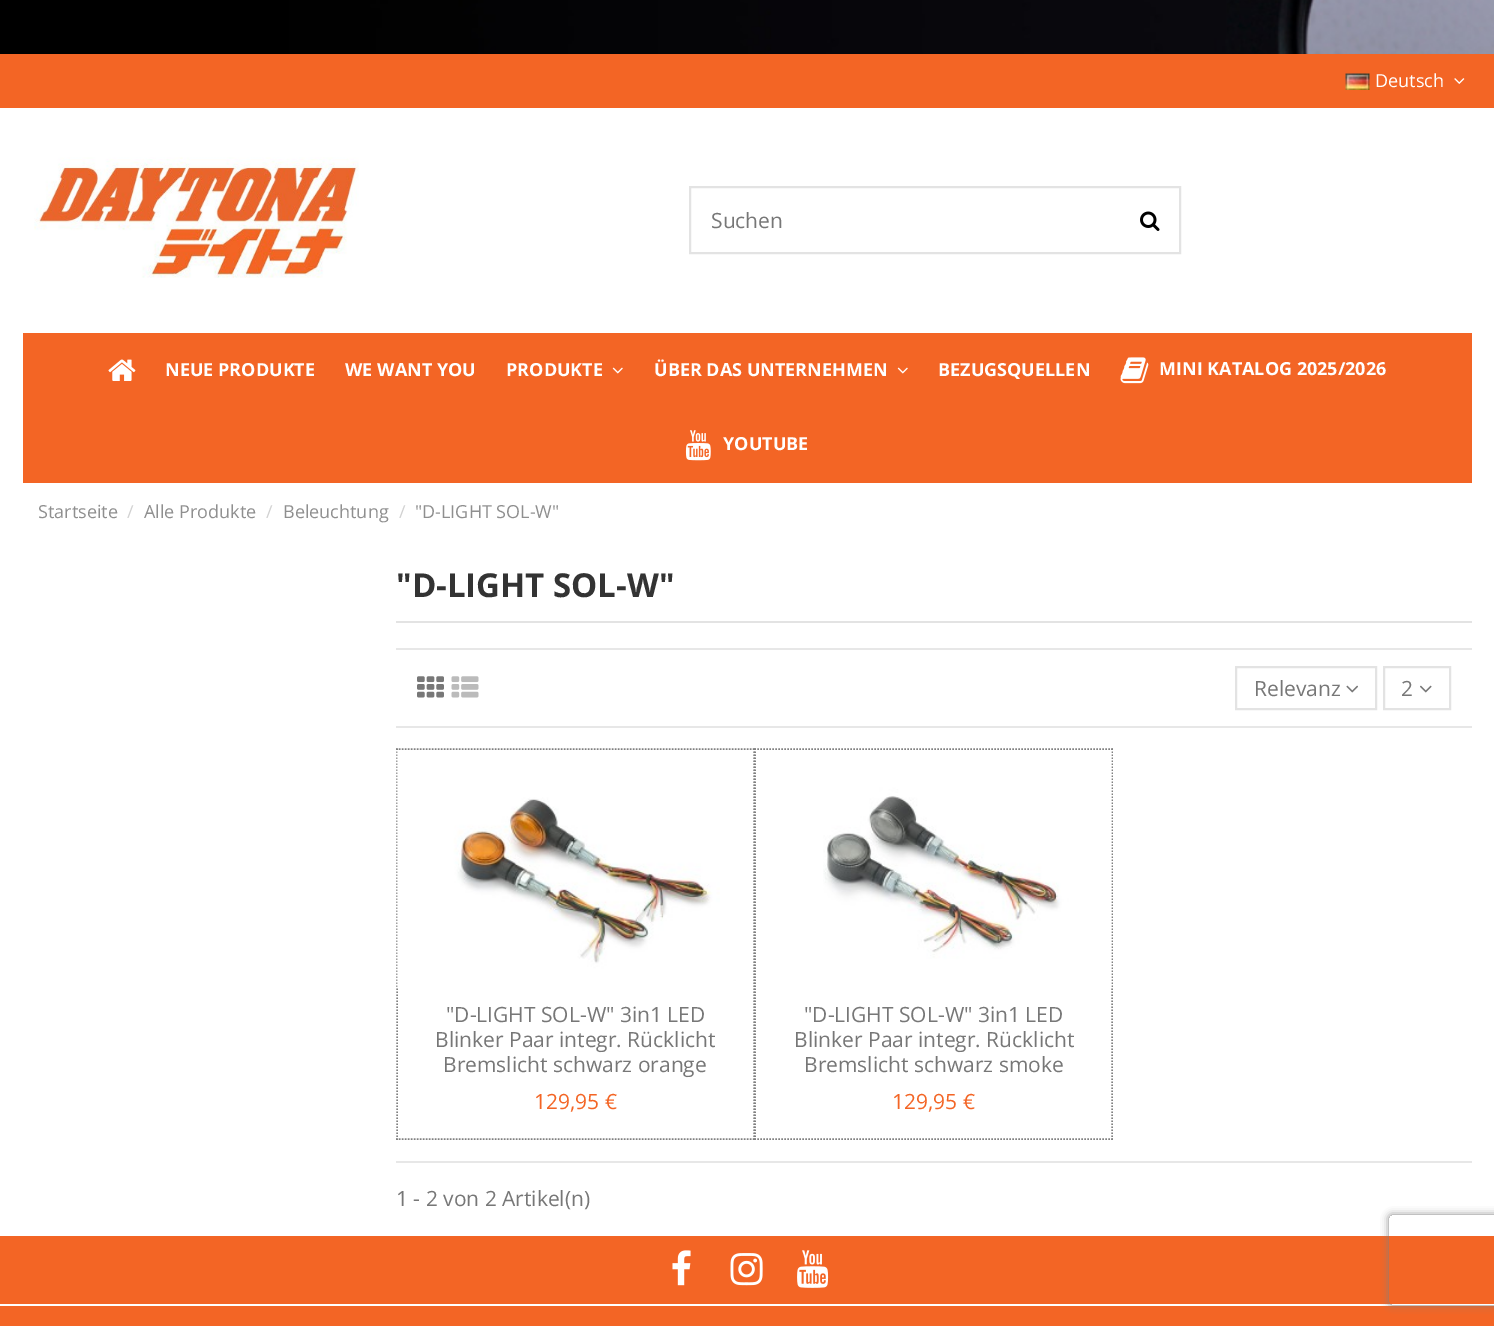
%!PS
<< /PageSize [1494 1326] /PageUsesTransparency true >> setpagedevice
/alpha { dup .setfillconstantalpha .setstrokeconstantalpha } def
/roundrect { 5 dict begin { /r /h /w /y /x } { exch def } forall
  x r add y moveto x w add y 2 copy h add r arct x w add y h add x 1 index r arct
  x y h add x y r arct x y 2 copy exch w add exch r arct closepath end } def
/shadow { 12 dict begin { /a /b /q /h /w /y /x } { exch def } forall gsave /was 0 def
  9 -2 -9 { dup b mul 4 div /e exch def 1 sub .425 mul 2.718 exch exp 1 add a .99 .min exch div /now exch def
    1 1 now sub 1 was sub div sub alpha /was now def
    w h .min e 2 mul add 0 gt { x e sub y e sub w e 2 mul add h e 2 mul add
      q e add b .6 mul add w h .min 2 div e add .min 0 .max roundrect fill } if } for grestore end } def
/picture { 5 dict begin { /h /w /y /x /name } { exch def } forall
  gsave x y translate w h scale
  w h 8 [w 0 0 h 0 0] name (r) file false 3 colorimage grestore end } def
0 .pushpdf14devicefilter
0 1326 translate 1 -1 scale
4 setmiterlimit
1 setgray
0 0 1494 1326 rectfill
(img1.rgb) 0 0 1494 54 picture
0.953 0.396 0.145 setrgbcolor
0 54 1494 54 rectfill
(img2.rgb) 1345 73 25 17 picture
/OpenSans-Regular [18 0 0 -18 0 0] selectfont
1 setgray
1375 87 moveto (Deutsch) show
(img3.rgb) 1454 78 11 6 picture
(img4.rgb) 34 157 325 121 picture
0.89 setgray
2 setlinewidth
690 187 490 66 rectstroke
/OpenSans-Regular [21 0 0 -21 0 0] selectfont
0.467 setgray
711 228 moveto (Suchen) show
(img5.rgb) 1140 211 20 20 picture
0.953 0.396 0.145 setrgbcolor
23 333 1449 150 rectfill
(img6.rgb) 108 359 28 22 picture
/OpenSans-Bold [18 0 0 -18 0 0] selectfont
1 setgray
165 376 moveto (NEUE PRODUKTE) show
345 376 moveto (WE WANT YOU) show
506 376 moveto (PRODUKTE) show
(img7.rgb) 612 367 11 7 picture
654 376 moveto (ÜBER DAS UNTERNEHMEN) show
(img7.rgb) 897 367 11 7 picture
938 376 moveto (BEZUGSQUELLEN) show
(img8.rgb) 1120 357 29 27 picture
1159 375 moveto (MINI KATALOG 2025/2026) show
(img9.rgb) 685 430 26 31 picture
723 450 moveto (YOUTUBE) show
/OpenSans-Regular [18 0 0 -18 0 0] selectfont
0.561 setgray
38 518 moveto (Startseite) show
0.824 setgray
127 518 moveto (/) show
0.561 setgray
144 518 moveto (Alle Produkte) show
0.824 setgray
266 518 moveto (/) show
0.561 setgray
283 518 moveto (Beleuchtung) show
0.824 setgray
399 518 moveto (/) show
0.561 setgray
415 518 moveto ("D-LIGHT SOL-W") show
0.89 setgray
396 621 1076 2 rectfill
/OpenSans-Bold [33 0 0 -33 0 0] selectfont
0.2 setgray
396 597 moveto ("D-LIGHT SOL-W") show
0.906 setgray
396 648 1076 2 rectfill
396 726 1076 2 rectfill
(img10.rgb) 417 676 27 22 picture
(img11.rgb) 451 676 28 22 picture
0.89 setgray
1236 667 140 42 rectstroke
/OpenSans-Regular [21 0 0 -21 0 0] selectfont
0.467 setgray
1254 696 moveto (Relevanz) show
(img12.rgb) 1346 685 12 8 picture
0.89 setgray
1384 667 66 42 rectstroke
0.467 setgray
1401 696 moveto (2) show
(img13.rgb) 1420 685 12 8 picture
0.502 setgray
1.5 setlinewidth
[1.5 1.5] 0 setdash
newpath 396 749 moveto 754.5 749 lineto stroke
newpath 754 748.5 moveto 754 1140 lineto stroke
newpath 396 1139 moveto 754.5 1139 lineto stroke
newpath 397 748.5 moveto 397 1140 lineto stroke
(img14.rgb) 397 751 323 236 picture
0.467 setgray
446 1022 moveto ("D-LIGHT SOL-W" 3in1 LED) show
435 1047 moveto (Blinker Paar integr. Rücklicht) show
443 1072 moveto (Bremslicht schwarz orange) show
0.953 0.396 0.145 setrgbcolor
534 1109 moveto (129,95 €) show
0.502 setgray
newpath 754.5 749 moveto 1113 749 lineto stroke
newpath 1112 748.5 moveto 1112 1140 lineto stroke
newpath 754.5 1139 moveto 1113 1139 lineto stroke
newpath 755 748.5 moveto 755 1140 lineto stroke
(img15.rgb) 823 751 289 236 picture
0.467 setgray
804 1022 moveto ("D-LIGHT SOL-W" 3in1 LED) show
794 1047 moveto (Blinker Paar integr. Rücklicht) show
804 1072 moveto (Bremslicht schwarz smoke) show
0.953 0.396 0.145 setrgbcolor
892 1109 moveto (129,95 €) show
0.906 setgray
396 1161 1076 2 rectfill
0.467 setgray
396 1206 moveto (1 - 2 von 2 Artikel\(n\)) show
0.953 0.396 0.145 setrgbcolor
0 1236 1494 90 rectfill
1 setgray
0 1304 1494 2 rectfill
gsave
newpath 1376 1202 moveto 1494 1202 lineto 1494 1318 lineto 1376 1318 lineto closepath 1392 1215 moveto 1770 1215 lineto 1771.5 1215 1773 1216.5 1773 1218 curveto 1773 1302 lineto 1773 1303.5 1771.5 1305 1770 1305 curveto 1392 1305 lineto 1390.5 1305 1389 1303.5 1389 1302 curveto 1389 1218 lineto 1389 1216.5 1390.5 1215 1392 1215 curveto closepath eoclip newpath
0.502 setgray
1389 1215 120 90 3 4 1 shadow
grestore
(img16.rgb) 672 1250 19 36 picture
(img17.rgb) 730 1253 33 33 picture
(img18.rgb) 797 1250 32 38 picture
.poppdf14devicefilter showpage
